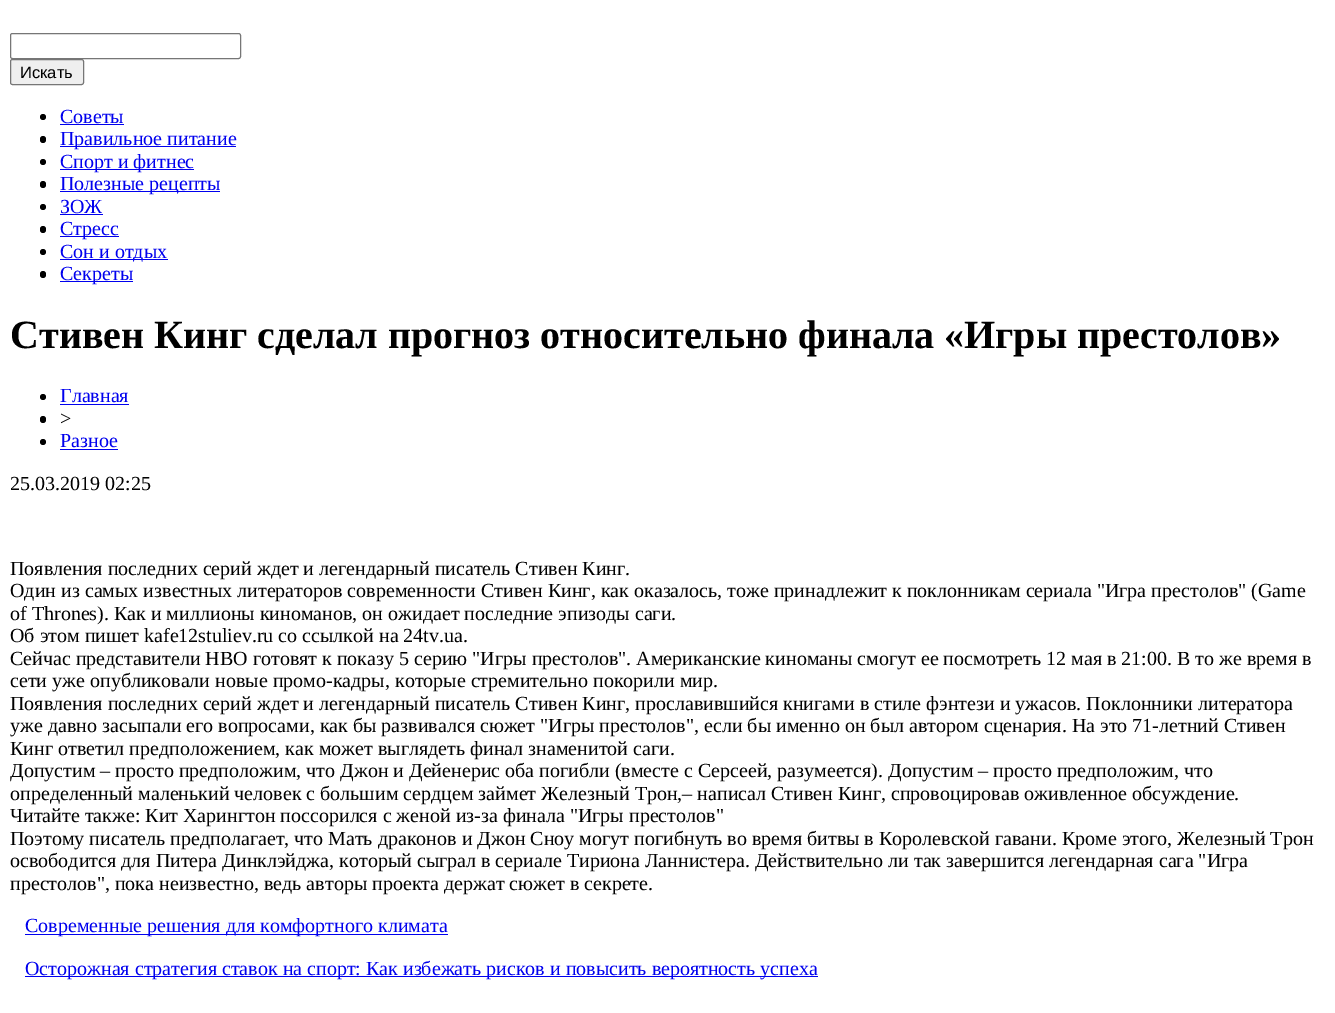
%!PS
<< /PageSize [1335 1013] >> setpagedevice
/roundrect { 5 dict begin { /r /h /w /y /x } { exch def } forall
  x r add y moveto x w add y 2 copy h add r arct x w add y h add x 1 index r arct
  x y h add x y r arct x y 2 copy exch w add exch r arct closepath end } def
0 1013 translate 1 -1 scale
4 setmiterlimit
1 setgray
0 0 1335 1013 rectfill
0.463 setgray
10.5 33.5 230 25 2 roundrect stroke
0.937 setgray
10.5 59.5 73 25 2 roundrect gsave fill grestore
0.463 setgray
stroke
/LiberationSans-Regular [16.5 0 0 -16.5 0 0] selectfont
0 setgray
20 78 moveto (Искать) show
newpath 43 117 3 0 360 arc closepath fill
/LiberationSerif-Regular [20 0 0 -20 0 0] selectfont
0 0 0.933 setrgbcolor
60 123 moveto (Советы) show
60 124 64 1 rectfill
0 setgray
40 136 6 7 3 roundrect fill
0 0 0.933 setrgbcolor
60 146 176 1 rectfill
60 145 moveto (Правильное питание) show
0 setgray
newpath 43 162 3 0 360 arc closepath fill
0 0 0.933 setrgbcolor
60 169 134 1 rectfill
60 168 moveto (Спорт и фитнес) show
0 setgray
40 181 6 7 3 roundrect fill
0 0 0.933 setrgbcolor
60 191 160 1 rectfill
60 190 moveto (Полезные рецепты) show
0 setgray
newpath 43 207 3 0 360 arc closepath fill
0 0 0.933 setrgbcolor
60 213 moveto (ЗОЖ) show
60 214 43 1 rectfill
0 setgray
40 226 6 7 3 roundrect fill
0 0 0.933 setrgbcolor
60 236 59 1 rectfill
60 235 moveto (Стресс) show
0 setgray
newpath 43 252 3 0 360 arc closepath fill
0 0 0.933 setrgbcolor
60 259 108 1 rectfill
60 258 moveto (Сон и отдых) show
0 setgray
40 271 6 7 3 roundrect fill
0 0 0.933 setrgbcolor
60 281 73 1 rectfill
60 280 moveto (Секреты) show
/LiberationSerif-Bold [40 0 0 -40 0 0] selectfont
0 setgray
10 348 moveto (Стивен Кинг сделал прогноз относительно финала «Игры престолов») show
newpath 43 397 3 0 360 arc closepath fill
/LiberationSerif-Regular [20 0 0 -20 0 0] selectfont
0 0 0.933 setrgbcolor
60 402 moveto (Главная) show
60 404 69 1 rectfill
0 setgray
40 416 6 7 3 roundrect fill
60 425 moveto (>) show
newpath 43 442 3 0 360 arc closepath fill
0 0 0.933 setrgbcolor
60 447 moveto (Разное) show
60 449 58 1 rectfill
0 setgray
10 490 moveto (25.03.2019 02:25) show
10 575 moveto (Появления последних серий ждет и легендарный писатель Стивен Кинг.) show
10 597 moveto (Один из самых известных литераторов современности Стивен Кинг, как оказалось, тоже принадлежит к поклонникам сериала "Игра престолов" \(Game) show
10 620 moveto (of Thrones\). Как и миллионы киноманов, он ожидает последние эпизоды саги.) show
10 642 moveto (Об этом пишет kafe12stuliev.ru со ссылкой на 24tv.ua.) show
10 665 moveto (Сейчас представители HBO готовят к показу 5 серию "Игры престолов". Американские киноманы смогут ее посмотреть 12 мая в 21:00. В то же время в) show
10 687 moveto (сети уже опубликовали новые промо-кадры, которые стремительно покорили мир.) show
10 710 moveto (Появления последних серий ждет и легендарный писатель Стивен Кинг, прославившийся книгами в стиле фэнтези и ужасов. Поклонники литератора) show
10 732 moveto (уже давно засыпали его вопросами, как бы развивался сюжет "Игры престолов", если бы именно он был автором сценария. На это 71-летний Стивен) show
10 755 moveto (Кинг ответил предположением, как может выглядеть финал знаменитой саги.) show
10 777 moveto (Допустим – просто предположим, что Джон и Дейенерис оба погибли \(вместе с Серсеей, разумеется\). Допустим – просто предположим, что) show
10 800 moveto (определенный маленький человек с большим сердцем займет Железный Трон,– написал Стивен Кинг, спровоцировав оживленное обсуждение.) show
10 822 moveto (Читайте также: Кит Харингтон поссорился с женой из-за финала "Игры престолов") show
10 845 moveto (Поэтому писатель предполагает, что Мать драконов и Джон Сноу могут погибнуть во время битвы в Королевской гавани. Кроме этого, Железный Трон) show
10 867 moveto (освободится для Питера Динклэйджа, который сыграл в сериале Тириона Ланнистера. Действительно ли так завершится легендарная сага "Игра) show
10 890 moveto (престолов", пока неизвестно, ведь авторы проекта держат сюжет в секрете.) show
0 0 0.933 setrgbcolor
25 934 423 1 rectfill
25 932 moveto (Современные решения для комфортного климата) show
25 976 793 1 rectfill
25 975 moveto (Осторожная стратегия ставок на спорт: Как избежать рисков и повысить вероятность успеха) show
showpage
